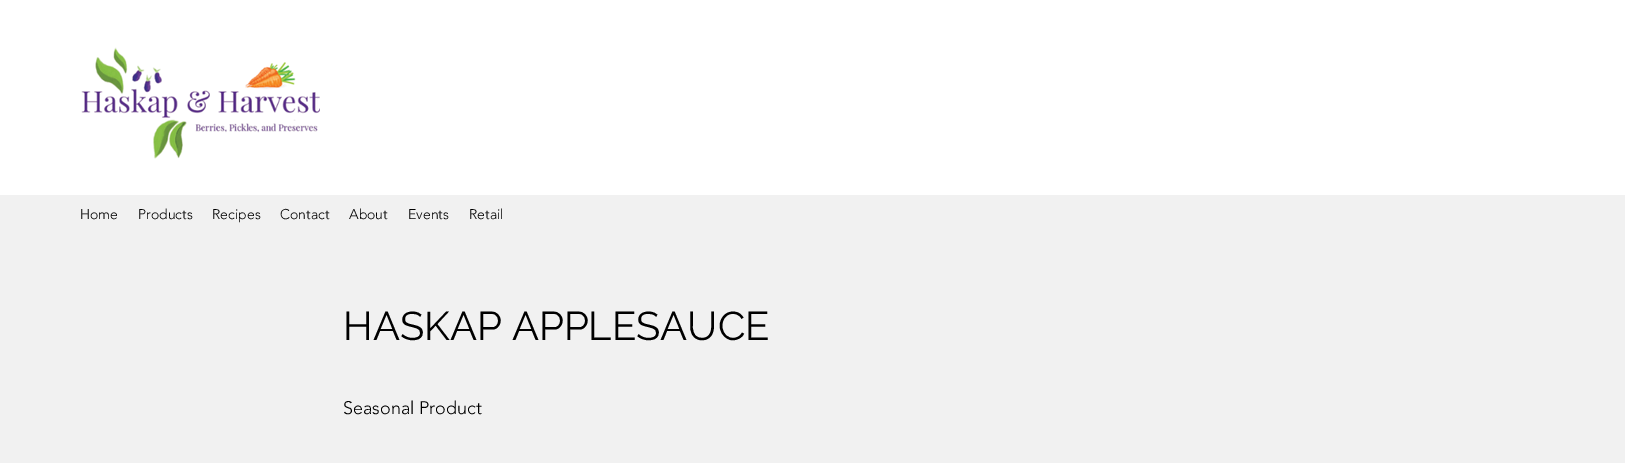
%!PS
<< /PageSize [1625 463] >> setpagedevice
/picture { 5 dict begin { /h /w /y /x /name } { exch def } forall
  gsave x y translate w h scale
  w h 8 [w 0 0 h 0 0] name (r) file false 3 colorimage grestore end } def
0 463 translate 1 -1 scale
4 setmiterlimit
1 setgray
0 0 1625 463 rectfill
(img1.rgb) 81 47 239 112 picture
0.945 setgray
0 195 1625 268 rectfill
/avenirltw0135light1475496-Light [14 0 0 -14 0 0] selectfont
0 setgray
80 219 moveto (Home) show
138 219 moveto (Products) show
212 219 moveto (Recipes) show
280 219 moveto (Contact) show
349 219 moveto (About) show
408 219 moveto (Events) show
469 219 moveto (Retail) show
/Raleway-Regular [40 0 0 -40 0 0] selectfont
343 340 moveto (HASKAP APPLESAUCE) show
/avenirltw0135light1475496-Light [18 0 0 -18 0 0] selectfont
343 414 moveto (Seasonal Product) show
showpage
